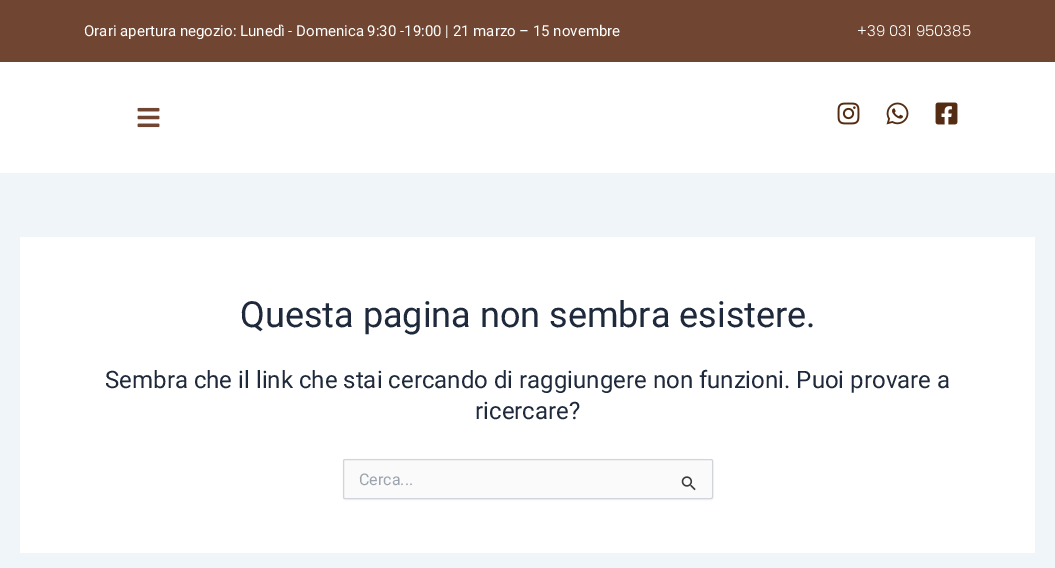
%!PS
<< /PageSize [1055 568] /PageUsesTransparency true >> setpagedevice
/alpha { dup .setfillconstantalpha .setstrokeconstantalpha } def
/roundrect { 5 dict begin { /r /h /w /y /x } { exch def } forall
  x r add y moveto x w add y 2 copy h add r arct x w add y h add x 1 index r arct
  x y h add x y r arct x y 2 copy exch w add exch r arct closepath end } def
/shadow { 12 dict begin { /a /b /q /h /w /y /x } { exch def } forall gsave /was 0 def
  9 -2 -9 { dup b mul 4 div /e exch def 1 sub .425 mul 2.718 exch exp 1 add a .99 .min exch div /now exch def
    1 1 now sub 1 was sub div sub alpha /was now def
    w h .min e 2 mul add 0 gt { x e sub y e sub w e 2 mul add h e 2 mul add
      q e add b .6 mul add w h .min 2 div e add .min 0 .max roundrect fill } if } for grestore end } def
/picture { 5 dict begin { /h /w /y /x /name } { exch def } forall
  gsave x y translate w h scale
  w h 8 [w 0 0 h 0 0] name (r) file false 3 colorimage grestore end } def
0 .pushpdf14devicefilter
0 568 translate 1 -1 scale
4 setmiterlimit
0.941 0.961 0.98 setrgbcolor
0 0 1055 568 rectfill
0.439 0.271 0.192 setrgbcolor
0 0 1055 62 rectfill
/Roboto-Regular [15 0 0 -15 0 0] selectfont
1 setgray
84 36 moveto (Orari apertura negozio: Lunedì - Domenica 9:30 -19:00 | 21 marzo – 15 novembre) show
/Poppins-Light [15 0 0 -15 0 0] selectfont
857 36 moveto (+39 031 950385) show
0 62 1055 111 rectfill
(img1.rgb) 137 107 23 21 picture
(img2.rgb) 837 102 23 23 picture
(img3.rgb) 886 102 23 23 picture
(img4.rgb) 935 102 23 23 picture
20 237 1015 316 rectfill
/Roboto-Regular [36 0 0 -36 0 0] selectfont
0.118 0.161 0.231 setrgbcolor
240 327 moveto (Questa pagina non sembra esistere.) show
/Roboto-Regular [24 0 0 -24 0 0] selectfont
105 388 moveto (Sembra che il link che stai cercando di raggiungere non funzioni. Puoi provare a) show
475 419 moveto (ricercare?) show
0 setgray
343 460 370 40 2 1 0.05 shadow
0.98 setgray
343.5 459.5 369 39 1.5 roundrect gsave fill grestore
0.82 0.835 0.859 setrgbcolor
stroke
/Roboto-Regular [16 0 0 -16 0 0] selectfont
0.612 0.639 0.686 setrgbcolor
359 485 moveto (Cerca...) show
(img5.rgb) 681 476 15 15 picture
.poppdf14devicefilter showpage
